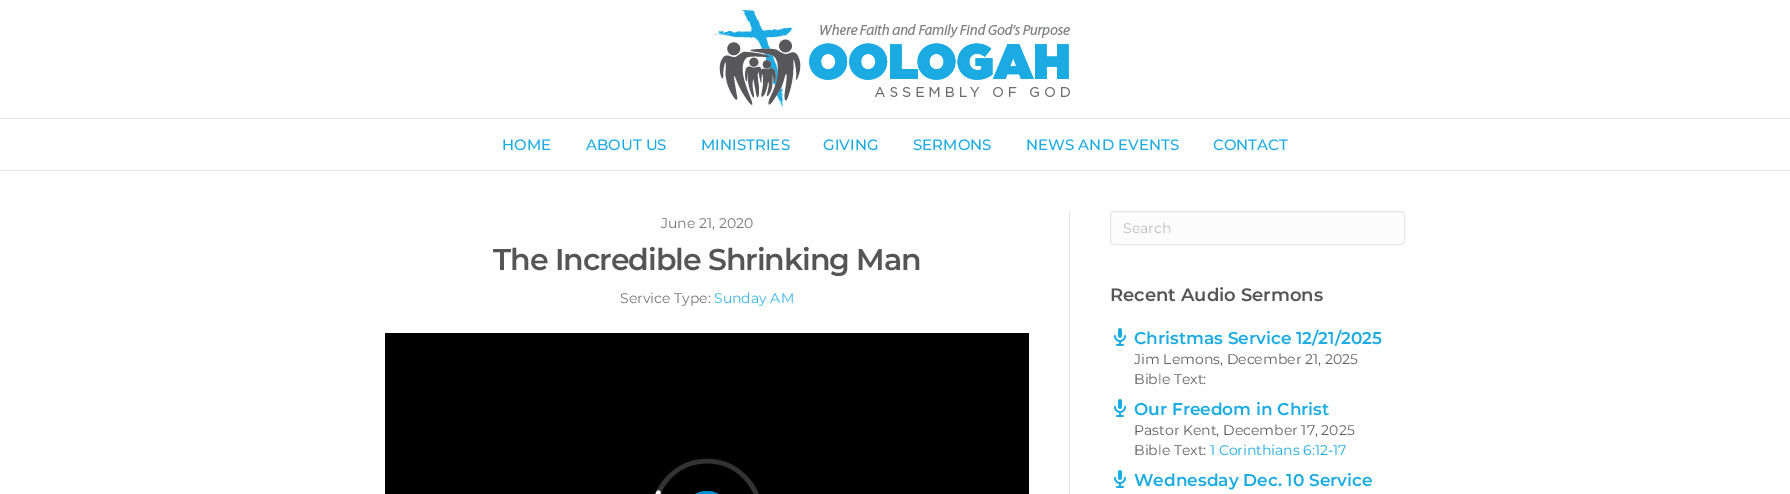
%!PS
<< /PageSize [1790 494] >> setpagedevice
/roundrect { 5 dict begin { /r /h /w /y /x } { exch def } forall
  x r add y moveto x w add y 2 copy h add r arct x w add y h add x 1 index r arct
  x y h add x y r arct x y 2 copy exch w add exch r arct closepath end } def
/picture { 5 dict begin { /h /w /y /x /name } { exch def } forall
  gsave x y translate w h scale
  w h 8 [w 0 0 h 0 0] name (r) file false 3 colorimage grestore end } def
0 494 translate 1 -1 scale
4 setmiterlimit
1 setgray
0 0 1790 494 rectfill
(img1.rgb) 715 10 355 98 picture
0.902 setgray
0 118 1790 1 rectfill
0 170 1790 1 rectfill
/Montserrat-Medium [15 0 0 -15 0 0] selectfont
0.102 0.671 0.89 setrgbcolor
502 150 moveto (HOME) show
586 150 moveto (ABOUT US) show
701 150 moveto (MINISTRIES) show
823 150 moveto (GIVING) show
913 150 moveto (SERMONS) show
1026 150 moveto (NEWS AND EVENTS) show
1213 150 moveto (CONTACT) show
0.902 setgray
1069 211 1 283 rectfill
/Montserrat-Regular [14 0 0 -14 0 0] selectfont
0.459 setgray
661 228 moveto (June 21, 2020) show
/Montserrat-SemiBold [30 0 0 -30 0 0] selectfont
0.333 setgray
493 270 moveto -1 0 (The Incredible Shrinking Man) ashow
/Montserrat-Regular [14 0 0 -14 0 0] selectfont
0.459 setgray
620 303 moveto (Service Type:) show
0.22 0.714 0.906 setrgbcolor
714 303 moveto (Sunday AM) show
0 setgray
385 333 644 161 rectfill
(img2.rgb) 655 458 104 36 picture
0 0.561 0.8 setrgbcolor
683 491 48 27 24 roundrect fill
0.988 setgray
1110.5 211.5 294 33 3.5 roundrect gsave fill grestore
0.902 setgray
stroke
0.745 setgray
1123 233 moveto (Search) show
/Montserrat-SemiBold [18 0 0 -18 0 0] selectfont
0.333 setgray
1110 301 moveto (Recent Audio Sermons) show
(img3.rgb) 1114 328 12 18 picture
/Montserrat-SemiBold [17 0 0 -17 0 0] selectfont
0.102 0.671 0.89 setrgbcolor
1134 344 moveto (Christmas Service 12/21/2025) show
/Montserrat-Regular [14 0 0 -14 0 0] selectfont
0.376 setgray
1134 364 moveto (Jim Lemons, December 21, 2025) show
1134 384 moveto (Bible Text:) show
(img3.rgb) 1114 399 12 18 picture
/Montserrat-SemiBold [17 0 0 -17 0 0] selectfont
0.102 0.671 0.89 setrgbcolor
1134 415 moveto (Our Freedom in Christ) show
/Montserrat-Regular [14 0 0 -14 0 0] selectfont
0.376 setgray
1134 435 moveto (Pastor Kent, December 17, 2025) show
1134 455 moveto (Bible Text:) show
0.102 0.671 0.89 setrgbcolor
1210 455 moveto (1 Corinthians 6:12-17) show
(img3.rgb) 1114 470 12 18 picture
/Montserrat-SemiBold [17 0 0 -17 0 0] selectfont
1134 486 moveto (Wednesday Dec. 10 Service) show
showpage
